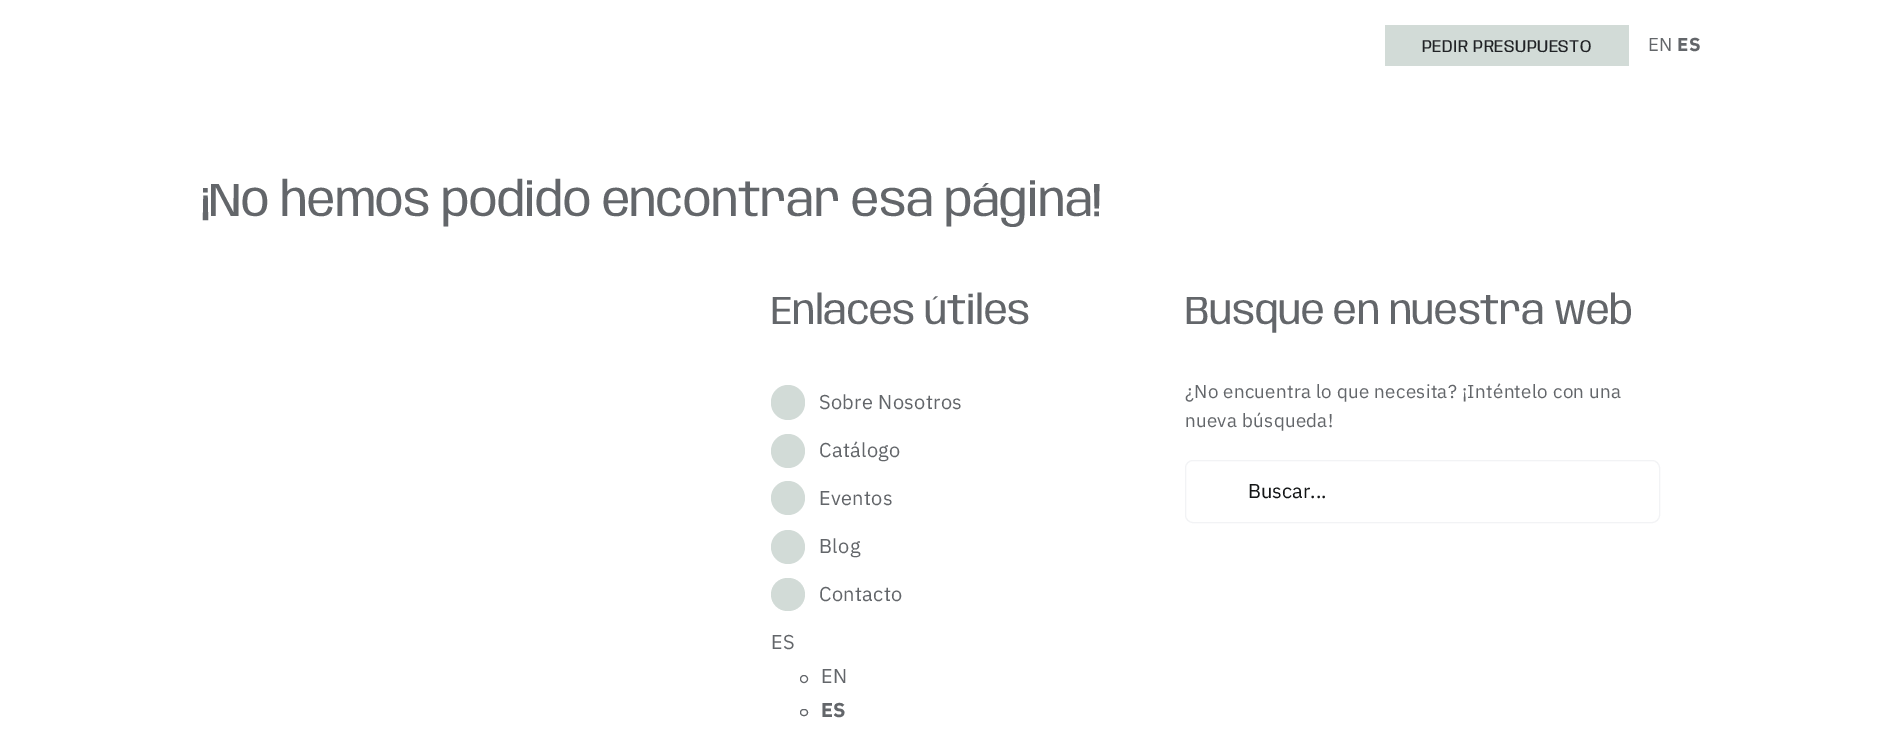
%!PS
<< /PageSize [1901 747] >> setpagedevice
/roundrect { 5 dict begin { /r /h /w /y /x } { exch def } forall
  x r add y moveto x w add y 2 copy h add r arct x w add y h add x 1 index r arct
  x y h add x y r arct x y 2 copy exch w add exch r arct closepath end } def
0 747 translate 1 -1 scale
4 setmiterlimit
1 setgray
0 0 1901 747 rectfill
0.824 0.859 0.843 setrgbcolor
1385 25 244 41 rectfill
/Anybody-Regular [17.5 0 0 -17.5 0 0] selectfont
0.129 0.137 0.149 setrgbcolor
1422 52 moveto 0.3 0 (PEDIR PRESUPUESTO) ashow
/IBMPlexSans-Regular [18.75 0 0 -18.75 0 0] selectfont
0.388 0.4 0.416 setrgbcolor
1648 51 moveto 0.3 0 (EN) ashow
/IBMPlexSans-Bold [18.75 0 0 -18.75 0 0] selectfont
1677 51 moveto 0.3 0 (ES) ashow
/Anybody-Regular [47.5 0 0 -47.5 0 0] selectfont
201 216 moveto -0.7 0 (¡No hemos podido encontrar esa página!) ashow
/Anybody-Regular [40 0 0 -40 0 0] selectfont
771 324 moveto -0.6 0 (Enlaces útiles) ashow
0.824 0.859 0.843 setrgbcolor
771 385 34 35 17 roundrect fill
/IBMPlexSans-Regular [20 0 0 -20 0 0] selectfont
0.388 0.4 0.416 setrgbcolor
819 409 moveto 0.3 0 (Sobre Nosotros) ashow
0.824 0.859 0.843 setrgbcolor
newpath 788 451 17 0 360 arc closepath fill
0.388 0.4 0.416 setrgbcolor
819 457 moveto 0.3 0 (Catálogo) ashow
0.824 0.859 0.843 setrgbcolor
newpath 788 498 17 0 360 arc closepath fill
0.388 0.4 0.416 setrgbcolor
819 505 moveto 0.3 0 (Eventos) ashow
0.824 0.859 0.843 setrgbcolor
newpath 788 547 17 0 360 arc closepath fill
0.388 0.4 0.416 setrgbcolor
819 553 moveto 0.3 0 (Blog) ashow
0.824 0.859 0.843 setrgbcolor
771 578 34 33 16.5 roundrect fill
0.388 0.4 0.416 setrgbcolor
819 601 moveto 0.3 0 (Contacto) ashow
771 649 moveto 0.3 0 (ES) ashow
newpath 804 679 3.5 0 360 arc closepath stroke
821 683 moveto 0.3 0 (EN) ashow
800.5 709.5 7 6 3 roundrect stroke
/IBMPlexSans-Bold [20 0 0 -20 0 0] selectfont
821 717 moveto 0.3 0 (ES) ashow
/Anybody-Regular [40 0 0 -40 0 0] selectfont
1185 324 moveto -0.6 0 (Busque en nuestra web) ashow
/IBMPlexSans-Regular [18.75 0 0 -18.75 0 0] selectfont
1185 398 moveto 0.3 0 (¿No encuentra lo que necesita? ¡Inténtelo con una) ashow
1185 427 moveto 0.3 0 (nueva búsqueda!) ashow
0.949 0.953 0.961 setrgbcolor
1185.5 460.5 474 62 7.5 roundrect stroke
/IBMPlexSans-Regular [20 0 0 -20 0 0] selectfont
0.078 0.086 0.09 setrgbcolor
1248 498 moveto (Buscar...) show
showpage
